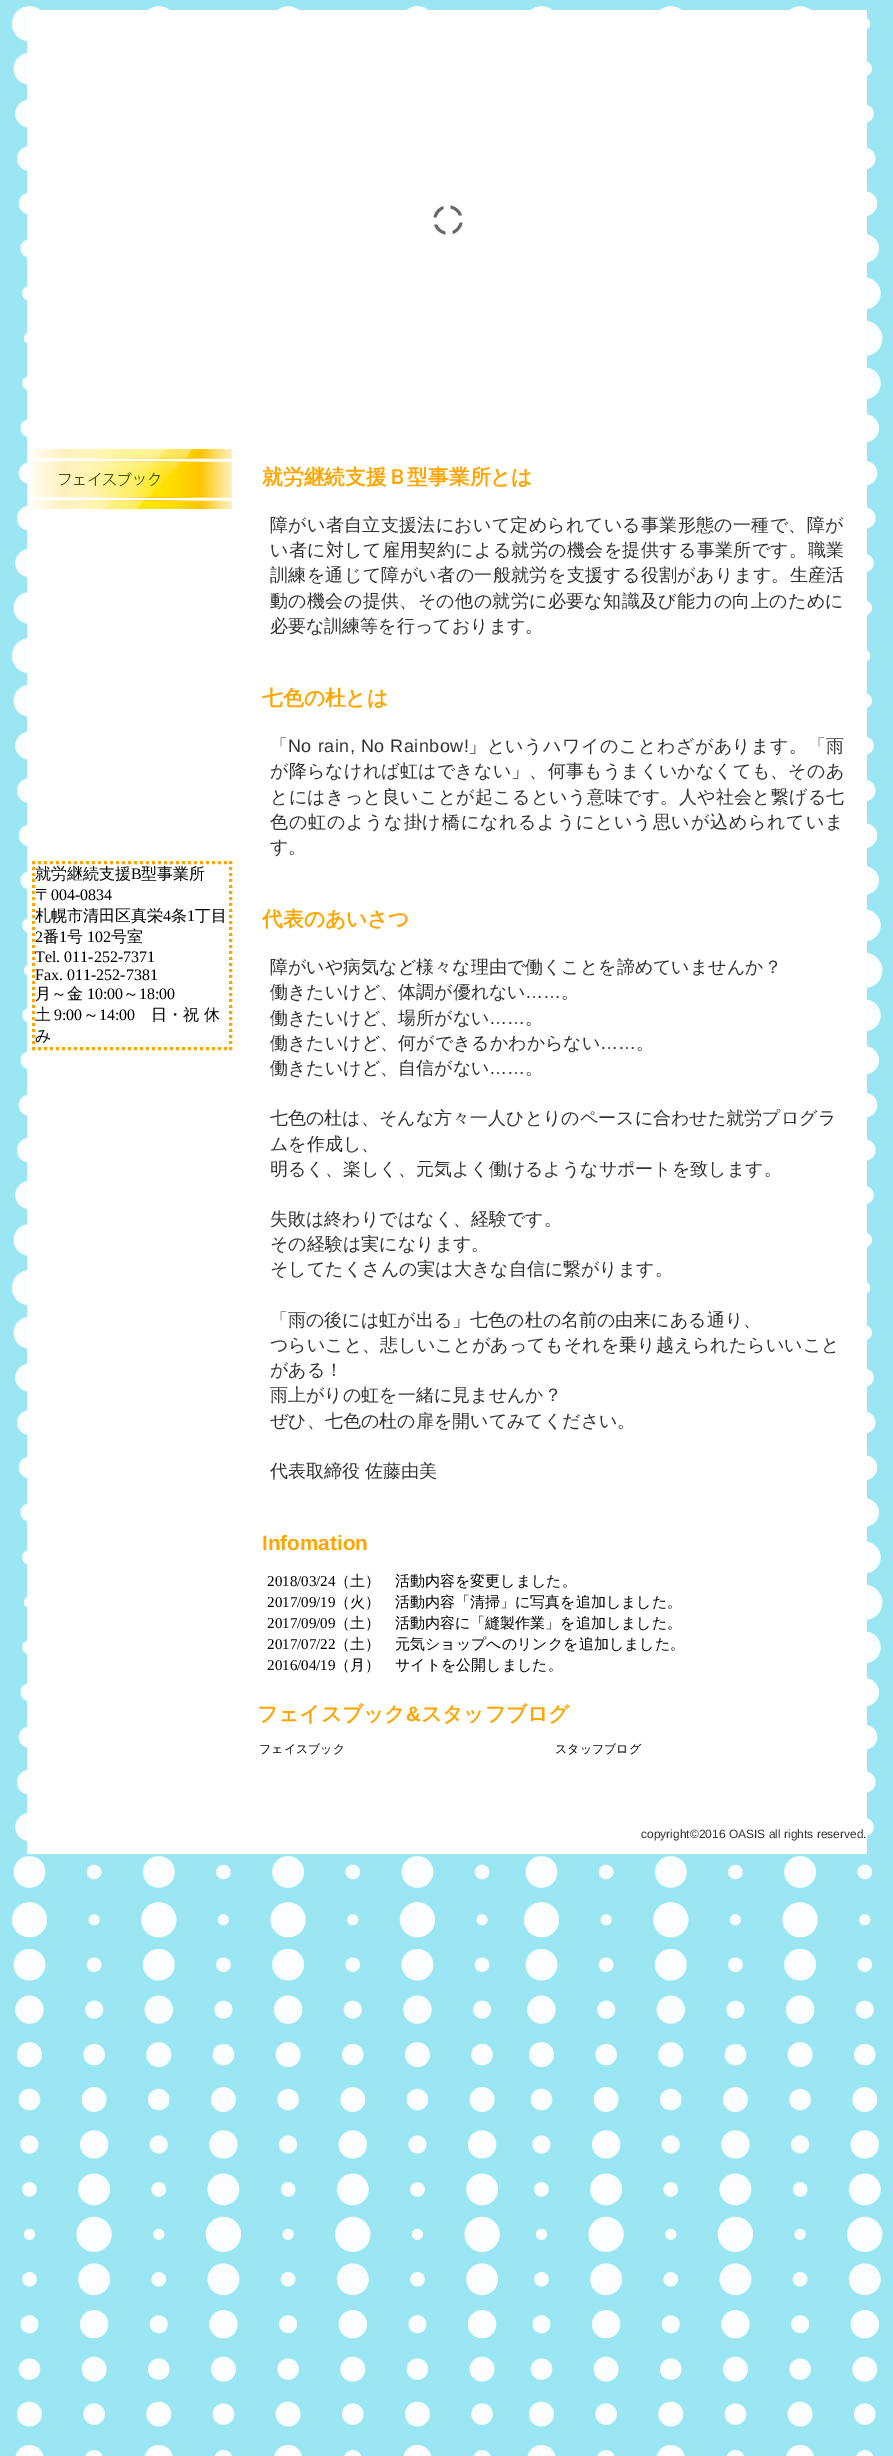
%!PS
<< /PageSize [893 2456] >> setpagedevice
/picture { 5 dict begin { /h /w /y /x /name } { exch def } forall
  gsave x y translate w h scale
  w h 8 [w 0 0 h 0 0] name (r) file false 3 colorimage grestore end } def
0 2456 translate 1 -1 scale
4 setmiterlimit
1 setgray
0 0 893 2456 rectfill
(img1.rgb) 0 0 893 2456 picture
27 10 840 1844 rectfill
(img2.rgb) 433 205 30 30 picture
(img3.rgb) 32 449 200 60 picture
1 0.647 0 setrgbcolor
3 setlinewidth
[3 3] 0 setdash
newpath 32 862.5 moveto 232 862.5 lineto stroke
newpath 230.5 861 moveto 230.5 1050 lineto stroke
newpath 32 1048.5 moveto 232 1048.5 lineto stroke
newpath 33.5 861 moveto 33.5 1050 lineto stroke
/WenQuanYiZenHei-Medium [16 0 0 -16 0 0] selectfont
0 setgray
35 879 moveto (就労継続支援) show
/LiberationSerif-Regular [16 0 0 -16 0 0] selectfont
131 879 moveto (B) show
/WenQuanYiZenHei-Medium [16 0 0 -16 0 0] selectfont
141 879 moveto (型事業所) show
35 900 moveto (〒) show
/LiberationSerif-Regular [16 0 0 -16 0 0] selectfont
51 900 moveto (004-0834) show
/WenQuanYiZenHei-Medium [16 0 0 -16 0 0] selectfont
35 921 moveto (札幌市清田区真栄) show
/LiberationSerif-Regular [16 0 0 -16 0 0] selectfont
163 921 moveto (4) show
/WenQuanYiZenHei-Medium [16 0 0 -16 0 0] selectfont
171 921 moveto (条) show
/LiberationSerif-Regular [16 0 0 -16 0 0] selectfont
187 921 moveto (1) show
/WenQuanYiZenHei-Medium [16 0 0 -16 0 0] selectfont
195 921 moveto (丁目) show
/LiberationSerif-Regular [16 0 0 -16 0 0] selectfont
35 942 moveto (2) show
/WenQuanYiZenHei-Medium [16 0 0 -16 0 0] selectfont
43 942 moveto (番) show
/LiberationSerif-Regular [16 0 0 -16 0 0] selectfont
59 942 moveto (1) show
/WenQuanYiZenHei-Medium [16 0 0 -16 0 0] selectfont
67 942 moveto (号) show
/LiberationSerif-Regular [16 0 0 -16 0 0] selectfont
87 942 moveto (102) show
/WenQuanYiZenHei-Medium [16 0 0 -16 0 0] selectfont
111 942 moveto (号室) show
/LiberationSerif-Regular [16 0 0 -16 0 0] selectfont
35 962 moveto (Tel. 011-252-7371) show
35 980 moveto (Fax. 011-252-7381) show
/WenQuanYiZenHei-Medium [16 0 0 -16 0 0] selectfont
35 999 moveto (月～金) show
/LiberationSerif-Regular [16 0 0 -16 0 0] selectfont
87 999 moveto (10:00) show
/WenQuanYiZenHei-Medium [16 0 0 -16 0 0] selectfont
123 999 moveto (～) show
/LiberationSerif-Regular [16 0 0 -16 0 0] selectfont
139 999 moveto (18:00) show
/WenQuanYiZenHei-Medium [16 0 0 -16 0 0] selectfont
35 1020 moveto (土) show
/LiberationSerif-Regular [16 0 0 -16 0 0] selectfont
54 1020 moveto (9:00) show
/WenQuanYiZenHei-Medium [16 0 0 -16 0 0] selectfont
83 1020 moveto (～) show
/LiberationSerif-Regular [16 0 0 -16 0 0] selectfont
99 1020 moveto (14:00) show
/WenQuanYiZenHei-Medium [16 0 0 -16 0 0] selectfont
151 1020 moveto (日・祝 休) show
35 1041 moveto (み) show
/WenQuanYiZenHei-Bold [20.75 0 0 -20.75 0 0] selectfont
1 0.647 0 setrgbcolor
262 484 moveto (就労継続支援Ｂ型事業所とは) show
/WenQuanYiZenHei-Medium [18 0 0 -18 0 0] selectfont
0.2 setgray
270 531 moveto 0.3 0 (障がい者自立支援法において定められている事業形態の一種で、障が) ashow
270 556 moveto 0.35 0 (い者に対して雇用契約による就労の機会を提供する事業所です。職業) ashow
270 581 moveto 0.35 0 (訓練を通じて障がい者の一般就労を支援する役割があります。生産活) ashow
270 607 moveto 0.35 0 (動の機会の提供、その他の就労に必要な知識及び能力の向上のために) ashow
270 632 moveto (必要な訓練等を行っております。) show
/WenQuanYiZenHei-Bold [20.75 0 0 -20.75 0 0] selectfont
1 0.647 0 setrgbcolor
262 705 moveto (七色の杜とは) show
/WenQuanYiZenHei-Medium [18 0 0 -18 0 0] selectfont
0.2 setgray
270 752 moveto 0.5 0 (「) ashow
/LiberationSans-Regular [18 0 0 -18 0 0] selectfont
288 752 moveto 0.5 0 (No rain, No Rainbow!) ashow
/WenQuanYiZenHei-Medium [18 0 0 -18 0 0] selectfont
468 752 moveto 0.5 0 (」というハワイのことわざがあります。「雨) ashow
270 777 moveto 0.2 0 (が降らなければ虹はできない」、何事もうまくいかなくても、そのあ) ashow
270 803 moveto 0.25 0 (とにはきっと良いことが起こるという意味です。人や社会と繋げる七) ashow
270 828 moveto 0.8 0 (色の虹のような掛け橋になれるようにという思いが込められていま) ashow
270 853 moveto (す。) show
/WenQuanYiZenHei-Bold [20.75 0 0 -20.75 0 0] selectfont
1 0.647 0 setrgbcolor
262 926 moveto (代表のあいさつ) show
/WenQuanYiZenHei-Medium [18 0 0 -18 0 0] selectfont
0.2 setgray
270 973 moveto (障がいや病気など様々な理由で働くことを諦めていませんか？) show
270 998 moveto (働きたいけど、体調が優れない) show
/LiberationSans-Regular [18 0 0 -18 0 0] selectfont
525 998 moveto (……) show
/WenQuanYiZenHei-Medium [18 0 0 -18 0 0] selectfont
561 998 moveto (。) show
270 1024 moveto (働きたいけど、場所がない) show
/LiberationSans-Regular [18 0 0 -18 0 0] selectfont
489 1024 moveto (……) show
/WenQuanYiZenHei-Medium [18 0 0 -18 0 0] selectfont
525 1024 moveto (。) show
270 1049 moveto (働きたいけど、何ができるかわからない) show
/LiberationSans-Regular [18 0 0 -18 0 0] selectfont
600 1049 moveto (……) show
/WenQuanYiZenHei-Medium [18 0 0 -18 0 0] selectfont
636 1049 moveto (。) show
270 1074 moveto (働きたいけど、自信がない) show
/LiberationSans-Regular [18 0 0 -18 0 0] selectfont
489 1074 moveto (……) show
/WenQuanYiZenHei-Medium [18 0 0 -18 0 0] selectfont
525 1074 moveto (。) show
270 1124 moveto (七色の杜は、そんな方々一人ひとりのペースに合わせた就労プログラ) show
270 1150 moveto (ムを作成し、) show
270 1175 moveto (明るく、楽しく、元気よく働けるようなサポートを致します。) show
270 1225 moveto (失敗は終わりではなく、経験です。) show
270 1250 moveto (その経験は実になります。) show
270 1275 moveto (そしてたくさんの実は大きな自信に繋がります。) show
270 1326 moveto (「雨の後には虹が出る」七色の杜の名前の由来にある通り、) show
270 1351 moveto (つらいこと、悲しいことがあってもそれを乗り越えられたらいいこと) show
270 1376 moveto (がある！) show
270 1401 moveto (雨上がりの虹を一緒に見ませんか？) show
270 1427 moveto (ぜひ、七色の杜の扉を開いてみてください。) show
270 1477 moveto (代表取締役 佐藤由美) show
/LiberationSans-Bold [20.75 0 0 -20.75 0 0] selectfont
1 0.647 0 setrgbcolor
262 1550 moveto (Infomation) show
/LiberationSerif-Regular [15 0 0 -15 0 0] selectfont
0 setgray
267 1586 moveto (2018/03/24) show
/WenQuanYiZenHei-Medium [15 0 0 -15 0 0] selectfont
335 1586 moveto (（土）　活動内容を変更しました。) show
/LiberationSerif-Regular [15 0 0 -15 0 0] selectfont
267 1607 moveto (2017/09/19) show
/WenQuanYiZenHei-Medium [15 0 0 -15 0 0] selectfont
335 1607 moveto (（火）　活動内容「清掃」に写真を追加しました。) show
/LiberationSerif-Regular [15 0 0 -15 0 0] selectfont
267 1628 moveto (2017/09/09) show
/WenQuanYiZenHei-Medium [15 0 0 -15 0 0] selectfont
335 1628 moveto (（土）　活動内容に「縫製作業」を追加しました。) show
/LiberationSerif-Regular [15 0 0 -15 0 0] selectfont
267 1649 moveto (2017/07/22) show
/WenQuanYiZenHei-Medium [15 0 0 -15 0 0] selectfont
335 1649 moveto (（土）　元気ショップへのリンクを追加しました。) show
/LiberationSerif-Regular [15 0 0 -15 0 0] selectfont
267 1670 moveto (2016/04/19) show
/WenQuanYiZenHei-Medium [15 0 0 -15 0 0] selectfont
335 1670 moveto (（月）　サイトを公開しました。) show
/WenQuanYiZenHei-Bold [20.75 0 0 -20.75 0 0] selectfont
1 0.647 0 setrgbcolor
257 1721 moveto (フェイスブック) show
/LiberationSans-Bold [20.75 0 0 -20.75 0 0] selectfont
406 1721 moveto (&) show
/WenQuanYiZenHei-Bold [20.75 0 0 -20.75 0 0] selectfont
421 1721 moveto (スタッフブログ) show
/WenQuanYiZenHei-Medium [12 0 0 -12 0 0] selectfont
0 setgray
259 1753 moveto (フェイスブック) show
555 1753 moveto (スタッフブログ) show
/LiberationSans-Regular [12 0 0 -12 0 0] selectfont
0.2 setgray
641 1838 moveto (copyright©2016 OASIS all rights reserved.) show
showpage
